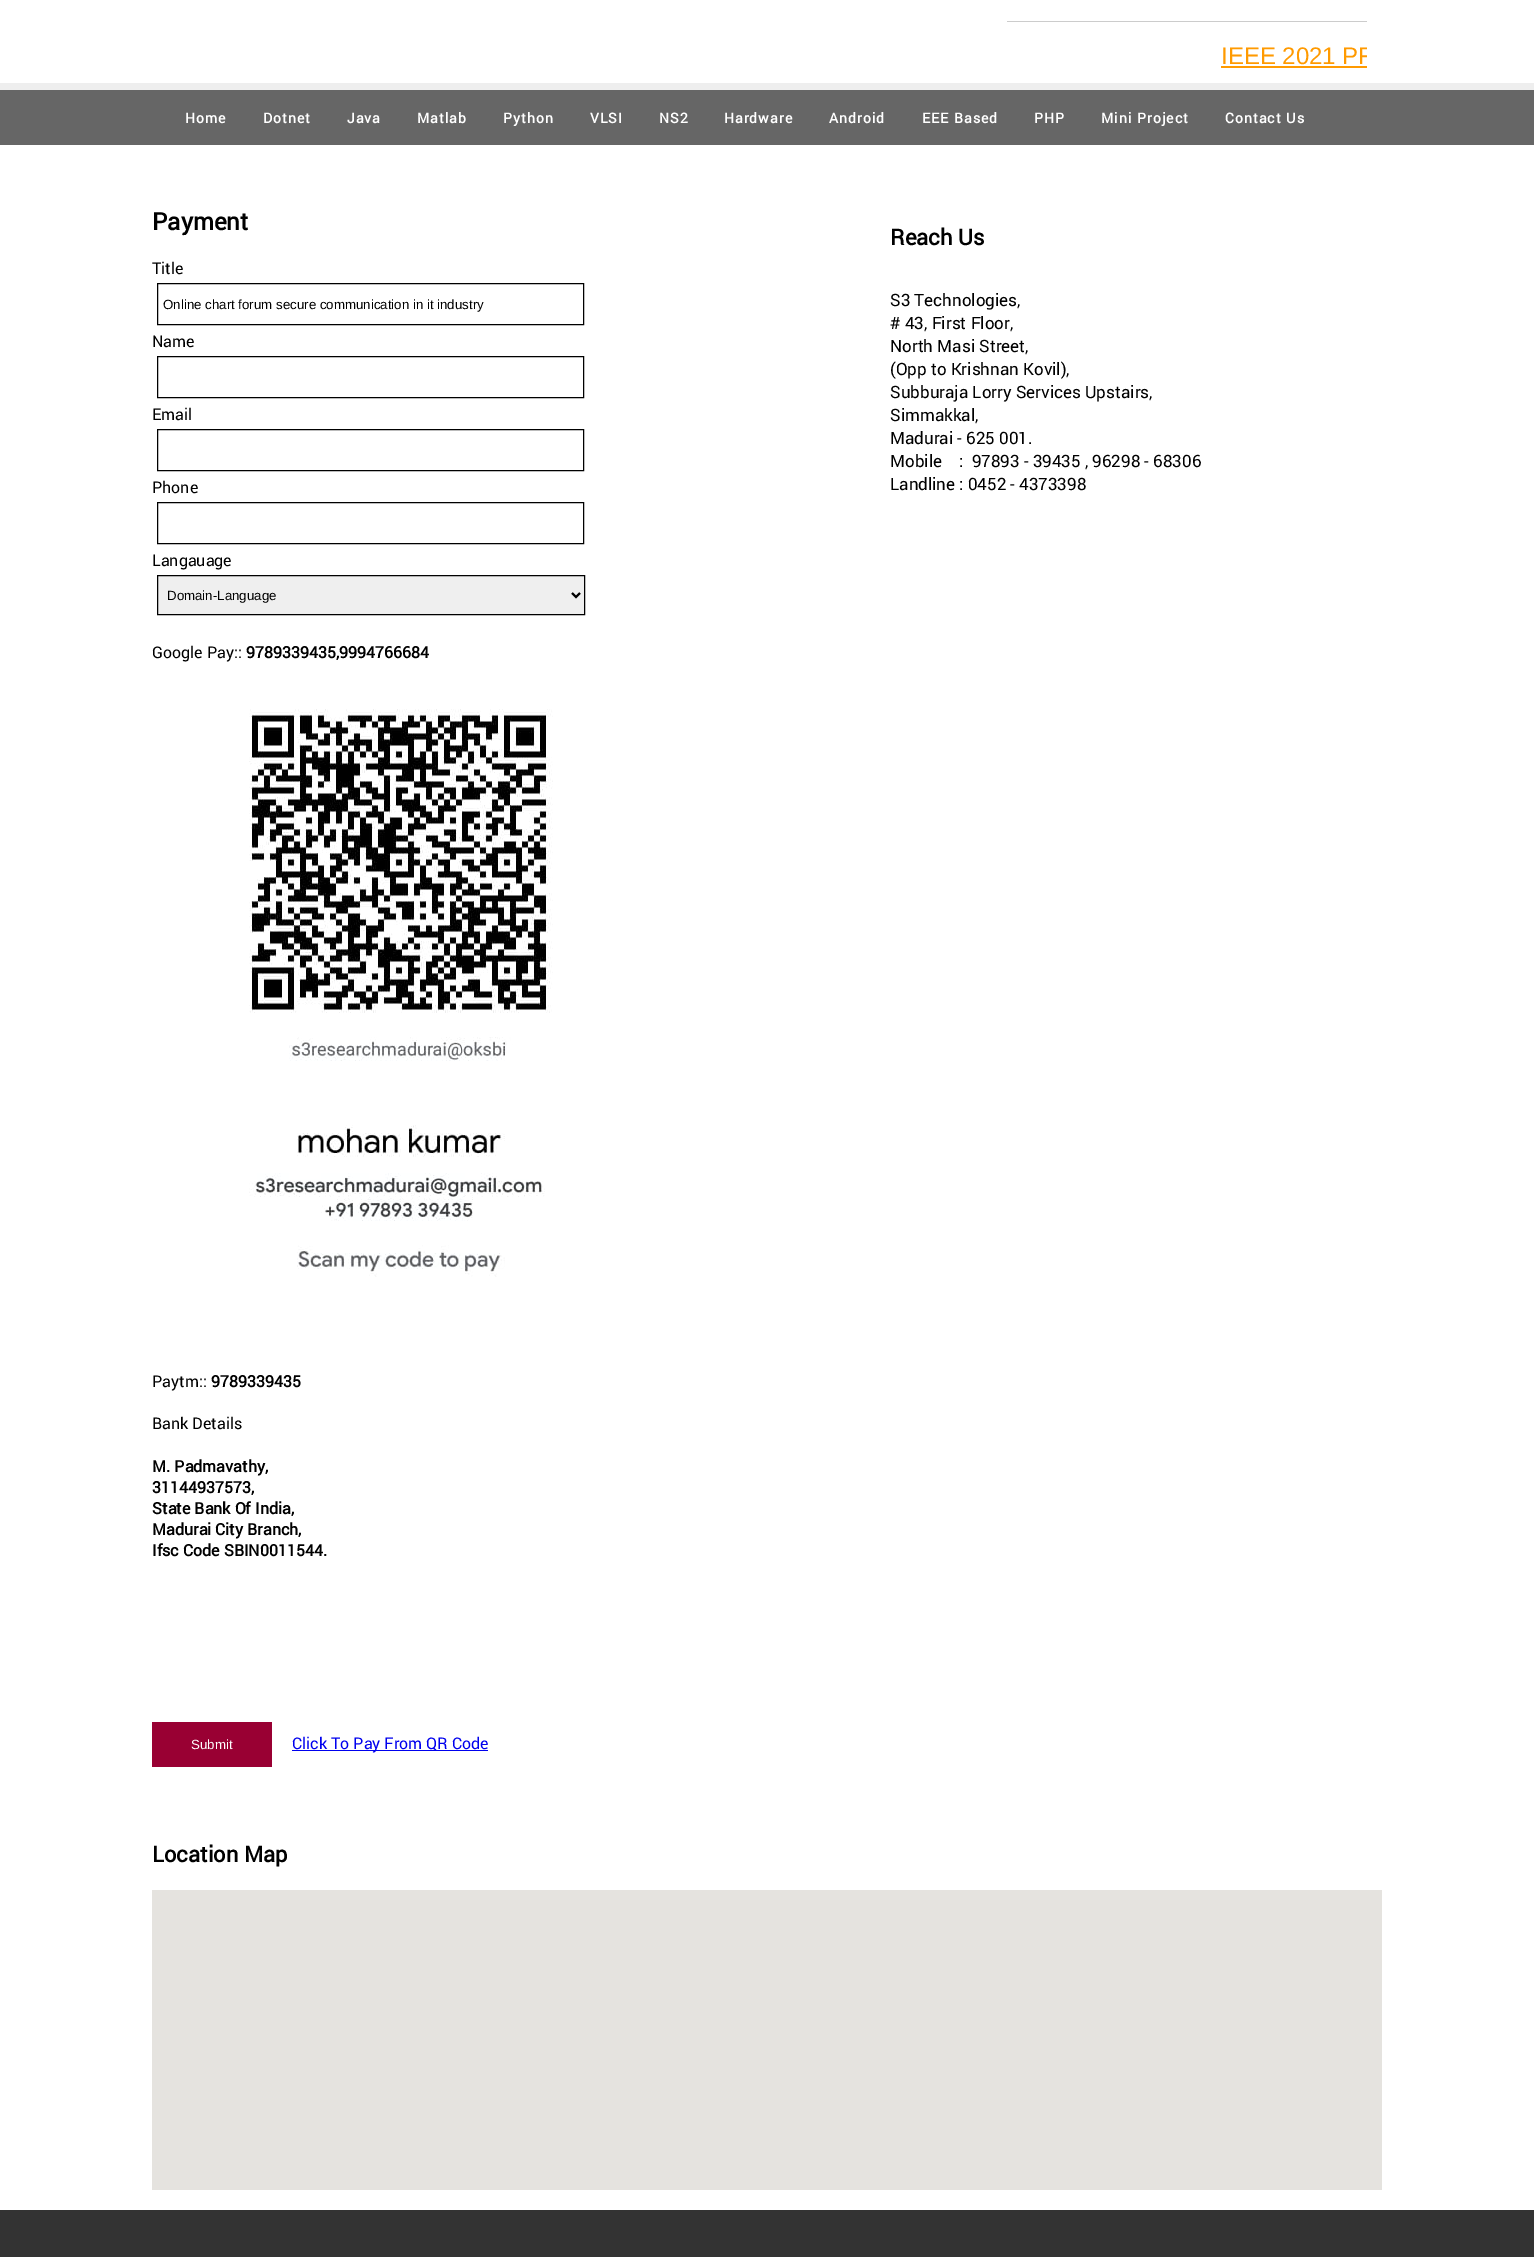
%!PS
<< /PageSize [1534 2257] >> setpagedevice
/picture { 5 dict begin { /h /w /y /x /name } { exch def } forall
  gsave x y translate w h scale
  w h 8 [w 0 0 h 0 0] name (r) file false 3 colorimage grestore end } def
0 2257 translate 1 -1 scale
4 setmiterlimit
1 setgray
0 0 1534 2257 rectfill
0.933 setgray
0 83 1534 7 rectfill
0.8 setgray
1007 21 360 1 rectfill
gsave
167 42 1200 28 rectclip
/LiberationSans-Regular [24 0 0 -24 0 0] selectfont
1 0.604 0 setrgbcolor
1221 64 moveto (IEEE 2021 PR) show
grestore
1 0.604 0 setrgbcolor
1221 66 146 2 rectfill
0.4 setgray
0 90 1534 55 rectfill
/Roboto-Bold [14 0 0 -14 0 0] selectfont
1 setgray
185 123 moveto 1 0 (Home) ashow
263 123 moveto 1 0 (Dotnet) ashow
347 123 moveto 1 0 (Java) ashow
417 123 moveto 1 0 (Matlab) ashow
503 123 moveto 1 0 (Python) ashow
590 123 moveto 1 0 (VLSI) ashow
659 123 moveto 1 0 (NS2) ashow
724 123 moveto 1 0 (Hardware) ashow
829 123 moveto 1 0 (Android) ashow
922 123 moveto 1 0 (EEE Based) ashow
1034 123 moveto 1 0 (PHP) ashow
1101 123 moveto 1 0 (Mini Project) ashow
1225 123 moveto 1 0 (Contact Us) ashow
/Roboto-Bold [24 0 0 -24 0 0] selectfont
0 setgray
152 230 moveto (Payment) show
/Roboto-Regular [16 0 0 -16 0 0] selectfont
152 274 moveto (Title) show
157.5 283.5 426 41 rectstroke
/LiberationSans-Regular [13.3 0 0 -13.3 0 0] selectfont
163 309 moveto (Online chart forum secure communication in it industry) show
/Roboto-Regular [16 0 0 -16 0 0] selectfont
152 347 moveto (Name) show
157.5 356.5 426 41 rectstroke
152 420 moveto (Email) show
157.5 429.5 426 41 rectstroke
152 493 moveto (Phone) show
157.5 502.5 426 41 rectstroke
152 566 moveto (Langauage) show
0.937 setgray
newpath 157.5 575.5 moveto 584.5 575.5 lineto 584.5 614.5 lineto 157.5 614.5 lineto closepath gsave fill grestore
0 setgray
stroke
2 setlinewidth
newpath 572 593 moveto 576 597 lineto 580 593 lineto stroke
/LiberationSans-Regular [13.3 0 0 -13.3 0 0] selectfont
167 600 moveto (Domain-Language) show
/Roboto-Regular [16 0 0 -16 0 0] selectfont
152 658 moveto (Google Pay::) show
/Roboto-Bold [16 0 0 -16 0 0] selectfont
246 658 moveto (9789339435,9994766684) show
(img1.rgb) 249 709 304 568 picture
/Roboto-Regular [16 0 0 -16 0 0] selectfont
152 1387 moveto (Paytm::) show
/Roboto-Bold [16 0 0 -16 0 0] selectfont
211 1387 moveto (9789339435) show
/Roboto-Regular [16 0 0 -16 0 0] selectfont
152 1429 moveto (Bank Details) show
/Roboto-Bold [16 0 0 -16 0 0] selectfont
152 1472 moveto (M. Padmavathy,) show
152 1493 moveto (31144937573,) show
152 1514 moveto (State Bank Of India,) show
152 1535 moveto (Madurai City Branch,) show
152 1556 moveto (Ifsc Code SBIN0011544.) show
0.6 0 0.2 setrgbcolor
152 1722 120 45 rectfill
/LiberationSans-Regular [13.3 0 0 -13.3 0 0] selectfont
1 setgray
191 1749 moveto (Submit) show
0 0 0.933 setrgbcolor
292 1750 196 1 rectfill
/Roboto-Regular [16 0 0 -16 0 0] selectfont
292 1749 moveto (Click To Pay From QR Code) show
/Roboto-Bold [22 0 0 -22 0 0] selectfont
0 setgray
890 245 moveto (Reach Us) show
/Roboto-Regular [17 0 0 -17 0 0] selectfont
890 306 moveto (S3 Technologies,) show
890 329 moveto (# 43, First Floor,) show
890 352 moveto (North Masi Street,) show
890 375 moveto (\(Opp to Krishnan Kovil\),) show
890 398 moveto (Subburaja Lorry Services Upstairs,) show
890 421 moveto (Simmakkal,) show
890 444 moveto (Madurai - 625 001.) show
890 467 moveto (Mobile) show
959 467 moveto (:  97893 - 39435 , 96298 - 68306) show
890 490 moveto (Landline : 0452 - 4373398) show
/Roboto-Bold [22 0 0 -22 0 0] selectfont
152 1862 moveto (Location Map) show
0.898 0.89 0.875 setrgbcolor
152 1890 1230 300 rectfill
0.2 setgray
0 2210 1534 47 rectfill
showpage
